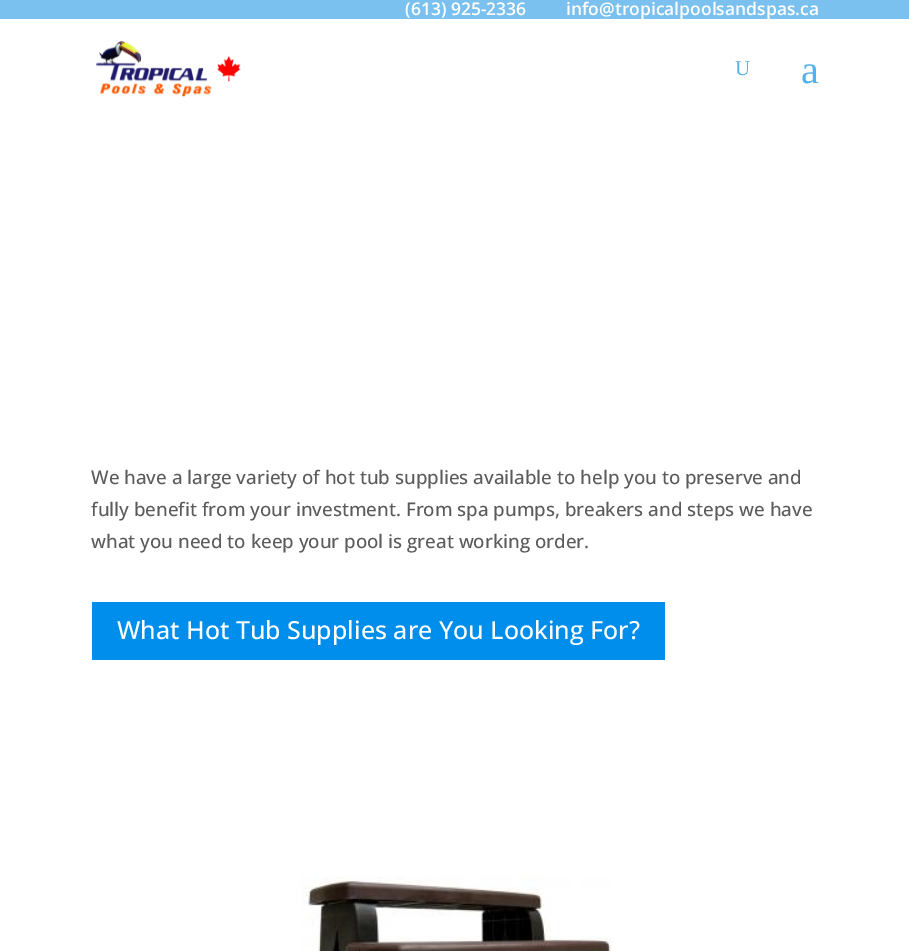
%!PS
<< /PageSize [909 951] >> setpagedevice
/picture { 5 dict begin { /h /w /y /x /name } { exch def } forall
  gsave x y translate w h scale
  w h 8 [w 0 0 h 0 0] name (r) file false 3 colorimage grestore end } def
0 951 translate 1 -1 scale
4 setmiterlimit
1 setgray
0 0 909 951 rectfill
0.482 0.757 0.941 setrgbcolor
0 0 909 19 rectfill
/OpenSans-SemiBold [17.5 0 0 -17.5 0 0] selectfont
1 setgray
405 15 moveto (\(613\) 925-2336) show
566 15 moveto (info@tropicalpoolsandspas.ca) show
(img1.rgb) 96 41 116 56 picture
(img2.rgb) 217 56 24 26 picture
/LiberationSerif-Regular [21 0 0 -21 0 0] selectfont
0.337 0.69 0.925 setrgbcolor
735 75 moveto (U) show
/LiberationSerif-Regular [40 0 0 -40 0 0] selectfont
801 83 moveto (a) show
/OpenSans-Medium [18.75 0 0 -18.75 0 0] selectfont
0.357 setgray
91 484 moveto (We have a large variety of hot tub supplies available to help you to preserve and) show
91 516 moveto (fully benefit from your investment. From spa pumps, breakers and steps we have) show
91 548 moveto (what you need to keep your pool is great working order.) show
0 0.557 0.929 setrgbcolor
92 602 573 58 rectfill
/OpenSans-Medium [25 0 0 -25 0 0] selectfont
1 setgray
117 639 moveto (What Hot Tub Supplies are You Looking For?) show
(img3.rgb) 301 876 311 75 picture
showpage
